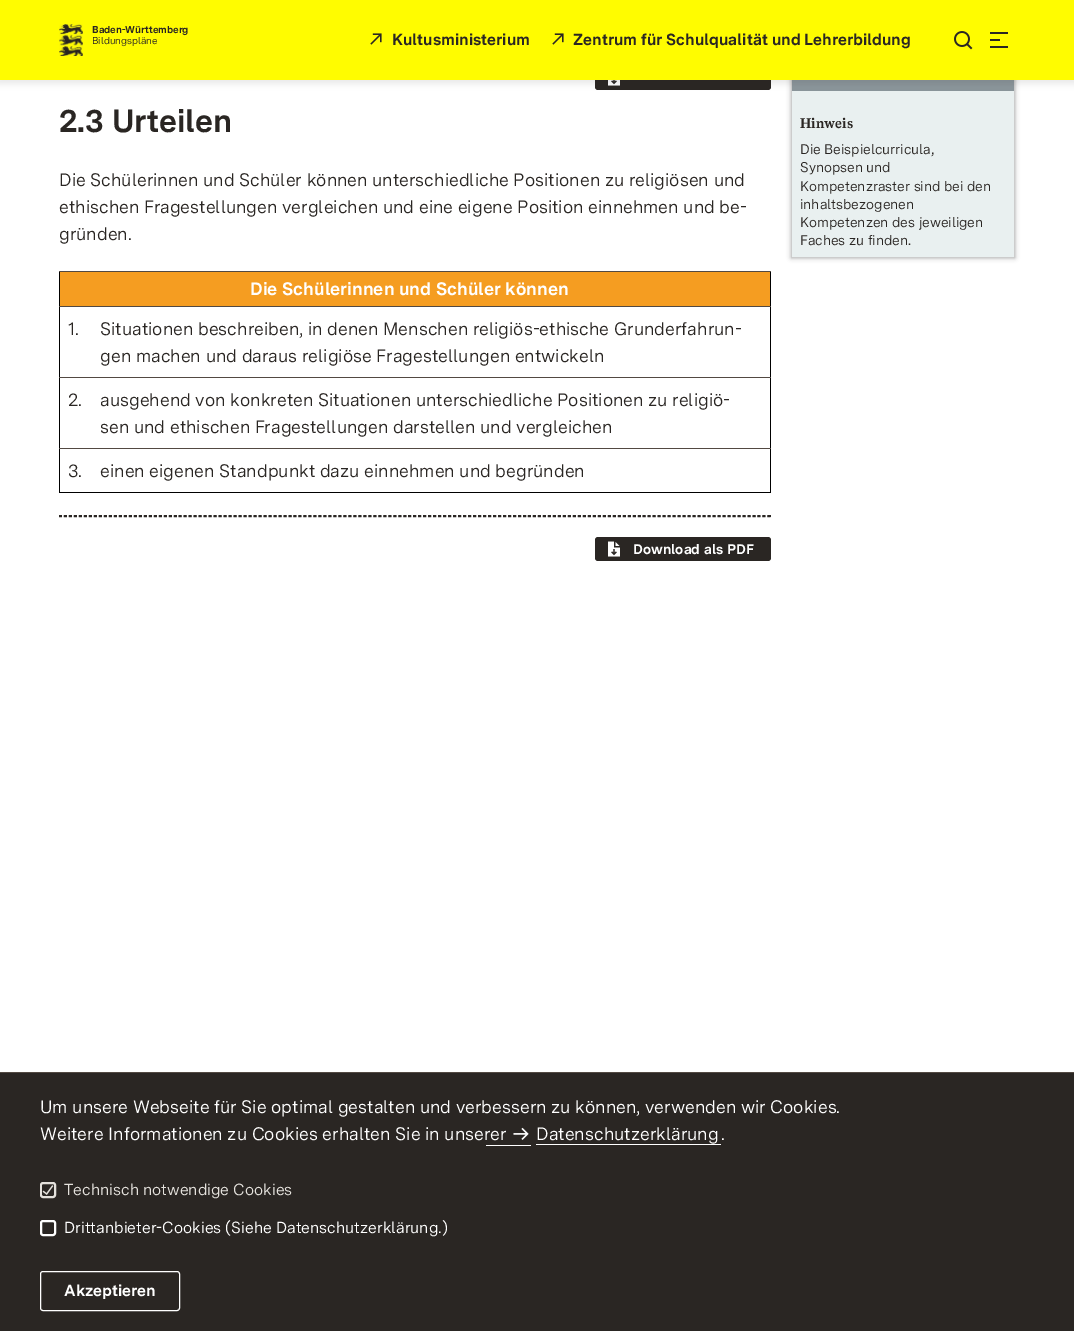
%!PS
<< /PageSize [1074 1331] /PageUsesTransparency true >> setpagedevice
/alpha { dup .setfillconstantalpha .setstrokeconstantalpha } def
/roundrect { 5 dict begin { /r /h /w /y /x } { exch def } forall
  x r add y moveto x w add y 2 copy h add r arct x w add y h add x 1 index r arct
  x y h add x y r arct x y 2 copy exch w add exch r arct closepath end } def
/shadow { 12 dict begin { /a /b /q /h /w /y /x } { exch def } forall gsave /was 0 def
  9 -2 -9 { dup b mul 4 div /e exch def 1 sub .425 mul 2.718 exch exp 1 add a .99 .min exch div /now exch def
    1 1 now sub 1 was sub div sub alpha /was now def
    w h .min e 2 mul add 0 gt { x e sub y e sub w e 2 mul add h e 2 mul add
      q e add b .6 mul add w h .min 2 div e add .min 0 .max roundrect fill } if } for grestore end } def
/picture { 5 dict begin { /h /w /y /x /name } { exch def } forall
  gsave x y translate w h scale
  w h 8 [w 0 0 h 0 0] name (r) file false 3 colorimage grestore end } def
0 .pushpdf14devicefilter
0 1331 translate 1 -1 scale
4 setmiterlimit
1 setgray
0 0 1074 1331 rectfill
0.165 0.149 0.137 setrgbcolor
595 66 176 24 3 roundrect fill
(img5.rgb) 608 80 12 6 picture
0 setgray
791 56 224 202 0 2.5 0.3 shadow
0.8 setgray
791.5 56.5 223 201 rectstroke
0.537 0.58 0.6 setrgbcolor
792 80 222 11 rectfill
0.914 0.941 0.941 setrgbcolor
792 91 222 166 rectfill
0.165 0.149 0.137 setrgbcolor
-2 0 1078 84 0 3 0.1 shadow
1 0.988 0 setrgbcolor
0 0 1074 80 rectfill
(img1.rgb) 59 24 24 32 picture
/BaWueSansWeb-Bold [10 0 0 -10 0 0] selectfont
0.165 0.149 0.137 setrgbcolor
92 33 moveto (Baden-Württemberg) show
/BaWueSansWeb-Regular [10 0 0 -10 0 0] selectfont
92 44 moveto (Bildungspläne) show
(img2.rgb) 370 33 12 12 picture
/BaWueSansWeb-Bold [16 0 0 -16 0 0] selectfont
392 45 moveto (Kultusministerium) show
(img2.rgb) 552 33 12 12 picture
573 45 moveto (Zentrum für Schulqualität und Lehrerbildung) show
(img3.rgb) 954 31 19 19 picture
(img4.rgb) 990 32 18 16 picture
/BaWueSansWeb-Bold [32 0 0 -32 0 0] selectfont
59 132 moveto (2.3 Urteilen) show
/BaWueSansWeb-Regular [18 0 0 -18 0 0] selectfont
59 186 moveto (Die Schülerinnen und Schüler können unterschiedliche Positionen zu religiösen und) show
59 213 moveto (ethischen Fragestellungen vergleichen und eine eigene Position einnehmen und be-) show
59 240 moveto (gründen.) show
0 setgray
770 271 1 222 rectfill
59 492 712 1 rectfill
59 271 1 222 rectfill
0.322 0.286 0.259 setrgbcolor
59 271 712 1 rectfill
0.961 0.616 0.129 setrgbcolor
60 272 710 34 rectfill
/BaWueSansWeb-Bold [18 0 0 -18 0 0] selectfont
1 setgray
250 295 moveto (Die Schülerinnen und Schüler können) show
0.322 0.286 0.259 setrgbcolor
59 306 712 1 rectfill
/BaWueSansWeb-Regular [18 0 0 -18 0 0] selectfont
0.165 0.149 0.137 setrgbcolor
68 335 moveto (1.) show
100 335 moveto (Situationen beschreiben, in denen Menschen religiös-ethische Grunderfahrun-) show
100 362 moveto (gen machen und daraus religiöse Fragestellungen entwickeln) show
0.322 0.286 0.259 setrgbcolor
59 377 712 1 rectfill
0.165 0.149 0.137 setrgbcolor
68 406 moveto (2.) show
100 406 moveto (ausgehend von konkreten Situationen unterschiedliche Positionen zu religiö-) show
100 433 moveto (sen und ethischen Fragestellungen darstellen und vergleichen) show
0.322 0.286 0.259 setrgbcolor
59 448 712 1 rectfill
0.165 0.149 0.137 setrgbcolor
68 477 moveto (3.) show
100 477 moveto (einen eigenen Standpunkt dazu einnehmen und begründen) show
[3 1.99] 0 setdash
newpath 59 515.5 moveto 771 515.5 lineto stroke
770 515 1 2 rectfill
newpath 59 516.5 moveto 771 516.5 lineto stroke
595 537 176 24 3 roundrect fill
(img6.rgb) 608 541 12 16 picture
/BaWueSansWeb-Bold [14 0 0 -14 0 0] selectfont
1 setgray
633 554 moveto (Download als PDF) show
/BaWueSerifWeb-Bold [14 0 0 -14 0 0] selectfont
0.165 0.149 0.137 setrgbcolor
800 128 moveto (Hinweis) show
/BaWueSansWeb-Regular [14 0 0 -14 0 0] selectfont
800 154 moveto (Die Beispielcurricula,) show
800 172 moveto (Synopsen und) show
800 191 moveto (Kompetenzraster sind bei den) show
800 209 moveto (inhaltsbezogenen) show
800 227 moveto (Kompetenzen des jeweiligen) show
800 245 moveto (Faches zu finden.) show
0 1073 1074 258 rectfill
0.322 0.286 0.259 setrgbcolor
0 1072 1074 1 rectfill
/BaWueSansWeb-Regular [18 0 0 -18 0 0] selectfont
1 setgray
40 1113 moveto (Um unsere Webseite für Sie optimal gestalten und verbessern zu können, verwenden wir Cookies.) show
40 1140 moveto (Weitere Informationen zu Cookies erhalten Sie in unserer) show
486 1145 45 1 rectfill
536 1144 185 1 rectfill
(img7.rgb) 513 1127 16 13 picture
536 1140 moveto (Datenschutzerklärung) show
721 1140 moveto (.) show
0.894 0.882 0.863 setrgbcolor
2 setlinewidth
[] 0 setdash
41 1183 14 14 2 roundrect stroke
(img8.rgb) 42 1185 12 10 picture
/BaWueSansWeb-Regular [16 0 0 -16 0 0] selectfont
64 1195 moveto (Technisch notwendige Cookies) show
1 setgray
41 1221 14 14 2 roundrect stroke
64 1233 moveto (Drittanbieter-Cookies \(Siehe Datenschutzerklärung.\)) show
1 setlinewidth
40.5 1271.5 139 39 2.5 roundrect stroke
/BaWueSansWeb-Bold [16 0 0 -16 0 0] selectfont
64 1296 moveto (Akzeptieren) show
.poppdf14devicefilter showpage
